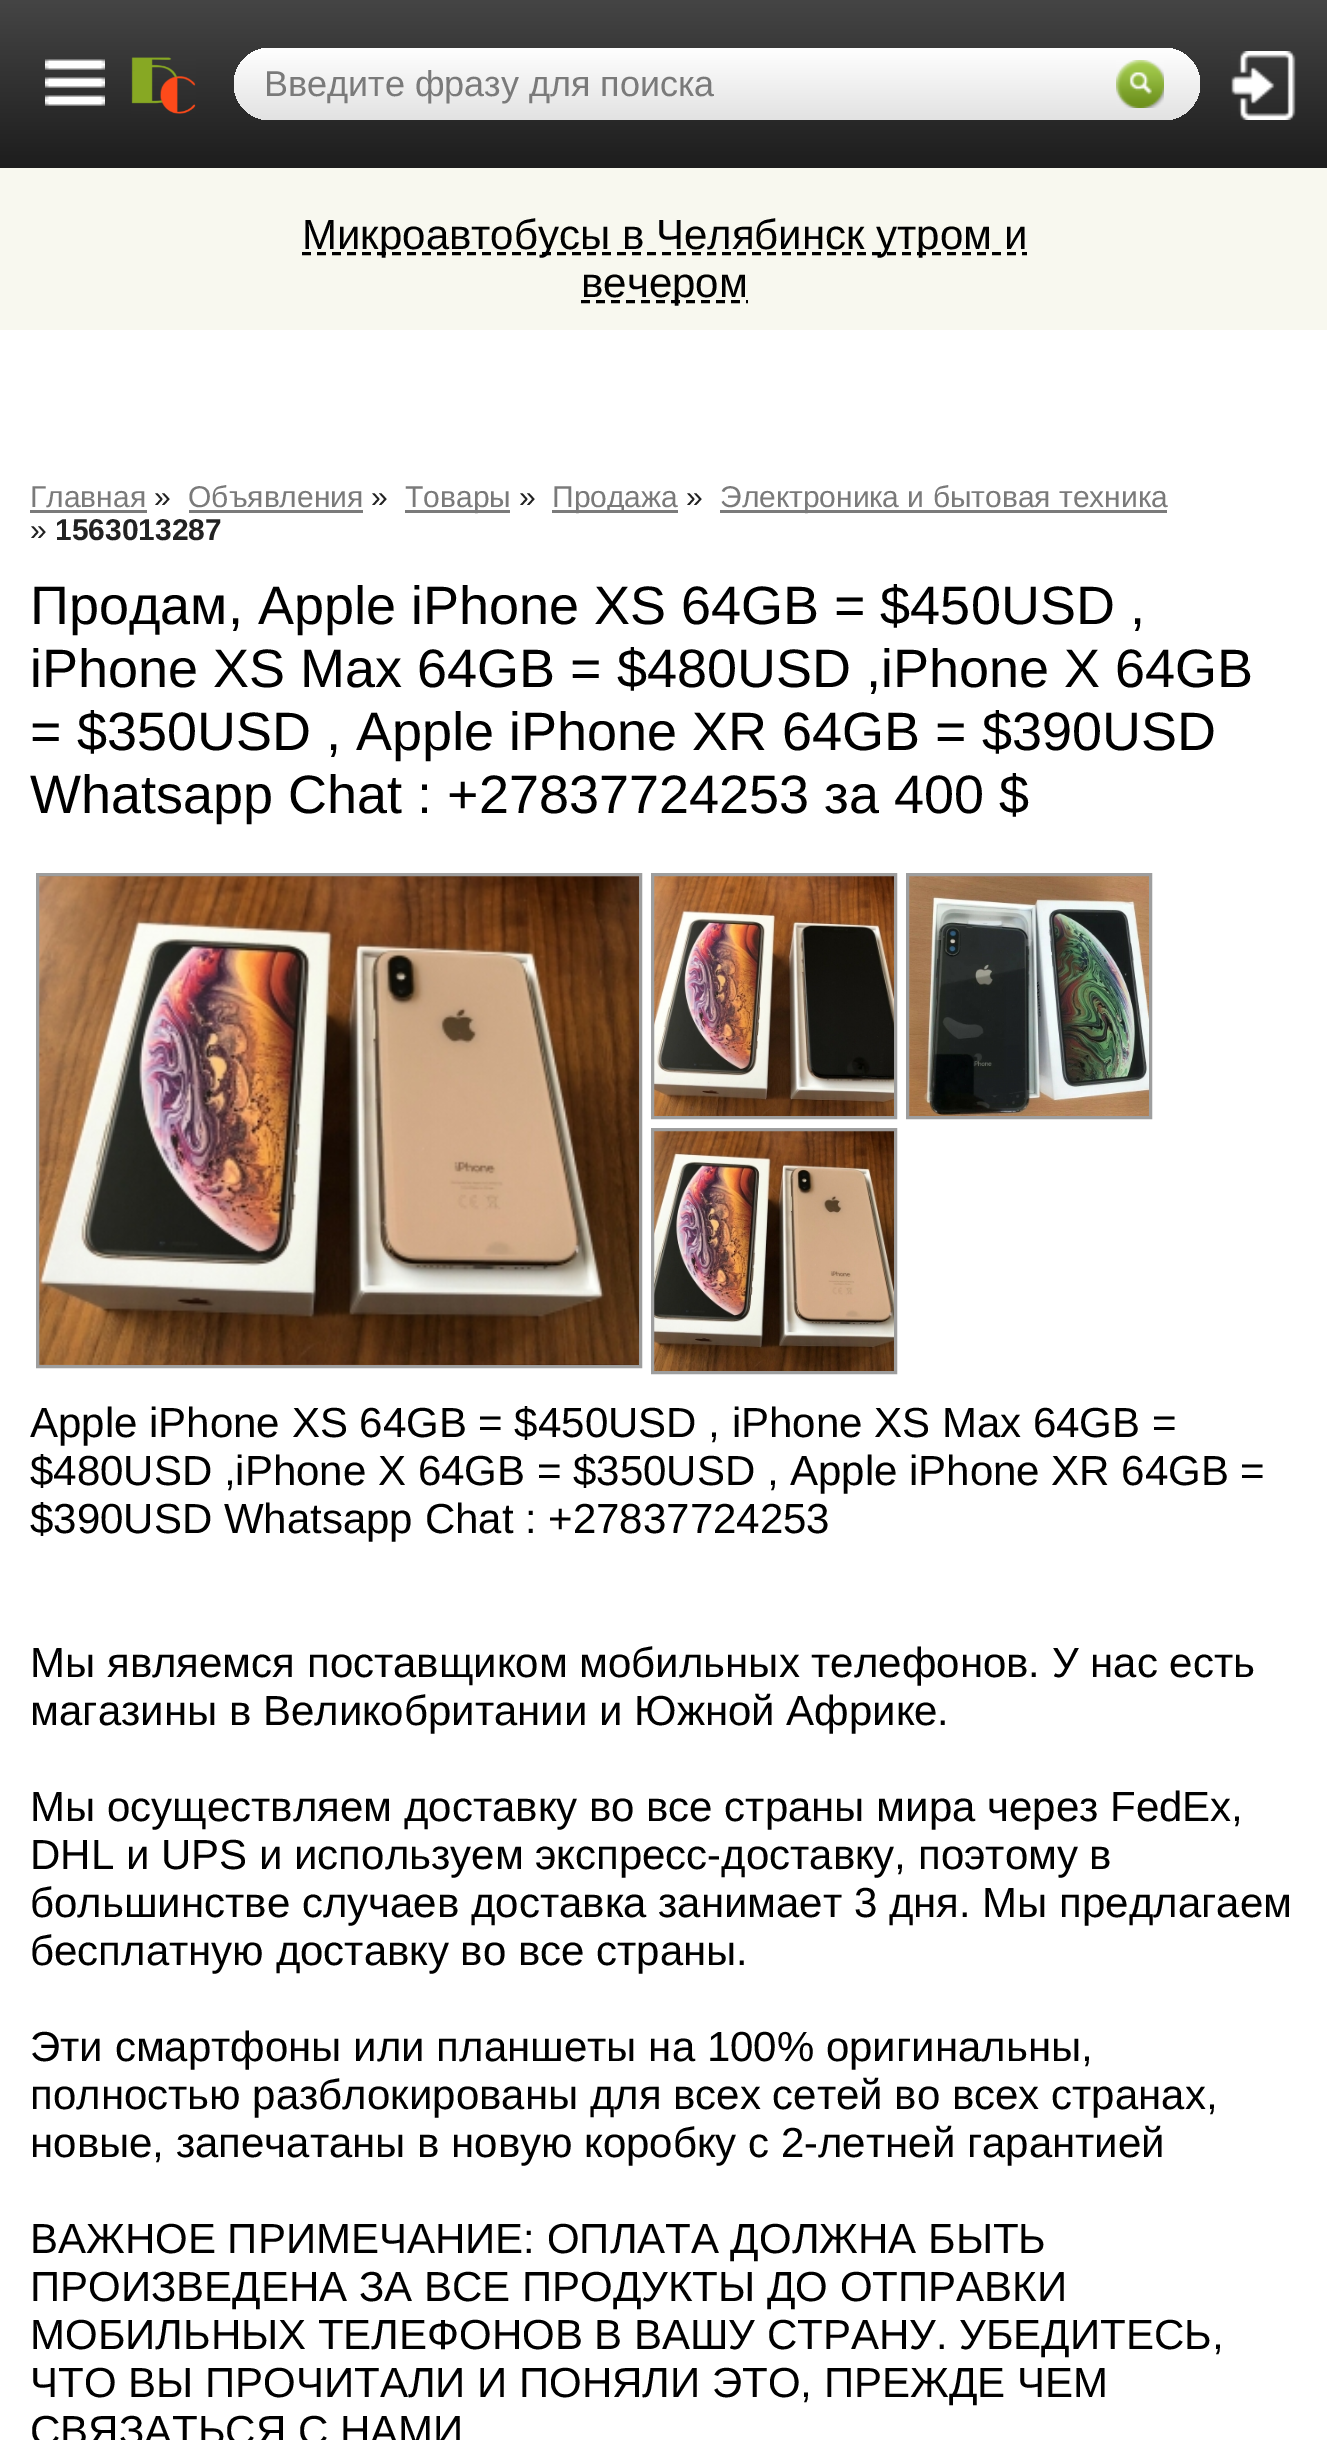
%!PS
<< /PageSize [1327 2440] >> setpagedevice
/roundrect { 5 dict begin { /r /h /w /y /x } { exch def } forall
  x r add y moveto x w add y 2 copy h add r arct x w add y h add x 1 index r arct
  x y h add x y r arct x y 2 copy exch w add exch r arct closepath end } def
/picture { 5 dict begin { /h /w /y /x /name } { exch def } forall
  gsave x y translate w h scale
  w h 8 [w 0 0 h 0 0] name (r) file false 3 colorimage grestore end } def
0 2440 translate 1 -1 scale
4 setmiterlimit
0.973 0.973 0.937 setrgbcolor
0 0 1327 2440 rectfill
gsave newpath 0 0 moveto 1327 0 lineto 1327 168 lineto 0 168 lineto closepath clip newpath
<< /ShadingType 2 /ColorSpace /DeviceRGB /Coords [665 0 665 168] /Extend [true true] /Function << /FunctionType 2 /Domain [0 1] /C0 [0.271 0.271 0.271] /C1 [0.114 0.114 0.114] /N 1 >> >> shfill grestore
(img1.rgb) 45 59 60 47 picture
(img2.rgb) 131 57 65 57 picture
gsave 234 48 966 72 36 roundrect clip newpath
<< /ShadingType 2 /ColorSpace /DeviceRGB /Coords [717 48 717 120] /Extend [true true] /Function << /FunctionType 2 /Domain [0 1] /C0 [1 1 1] /C1 [0.886 0.886 0.886] /N 1 >> >> shfill grestore
/LiberationSans-Regular [36 0 0 -36 0 0] selectfont
0.478 setgray
264 96 moveto (Введите фразу для поиска) show
(img3.rgb) 1116 60 48 48 picture
(img4.rgb) 1231 51 65 69 picture
0 setgray
3 setlinewidth
[9 6] 0 setdash
newpath 302 253.5 moveto 1027 253.5 lineto stroke
/LiberationSans-Regular [42 0 0 -42 0 0] selectfont
302 249 moveto (Микроавтобусы в Челябинск утром и) show
newpath 581 301.5 moveto 748 301.5 lineto stroke
581 297 moveto (вечером) show
1 setgray
0 330 1327 2110 rectfill
/LiberationSans-Regular [30 0 0 -30 0 0] selectfont
0.478 setgray
30 507 moveto (Главная) show
30 510 117 3 rectfill
0.133 setgray
154 507 moveto (») show
0.478 setgray
188 507 moveto (Объявления) show
189 510 174 3 rectfill
0.133 setgray
371 507 moveto (») show
0.478 setgray
405 510 105 3 rectfill
405 507 moveto (Товары) show
0.133 setgray
519 507 moveto (») show
0.478 setgray
552 510 126 3 rectfill
552 507 moveto (Продажа) show
0.133 setgray
686 507 moveto (») show
0.478 setgray
720 510 447 3 rectfill
720 507 moveto (Электроника и бытовая техника) show
0.133 setgray
30 540 moveto (») show
/LiberationSans-Bold [30 0 0 -30 0 0] selectfont
55 540 moveto (1563013287) show
/LiberationSans-Regular [54 0 0 -54 0 0] selectfont
0 setgray
30 624 moveto (Продам, Apple iPhone XS 64GB = $450USD ,) show
30 687 moveto (iPhone XS Max 64GB = $480USD ,iPhone X 64GB) show
30 750 moveto (= $350USD , Apple iPhone XR 64GB = $390USD) show
30 813 moveto (Whatsapp Chat : +27837724253 за 400 $) show
(img5.rgb) 39 876 600 489 picture
0.62 setgray
[] 0 setdash
37.5 874.5 603 492 rectstroke
(img6.rgb) 654 876 240 240 picture
652.5 874.5 243 243 rectstroke
(img7.rgb) 909 876 240 240 picture
907.5 874.5 243 243 rectstroke
(img8.rgb) 654 1131 240 240 picture
652.5 1129.5 243 243 rectstroke
/LiberationSans-Regular [42 0 0 -42 0 0] selectfont
0 setgray
30 1437 moveto (Apple iPhone XS 64GB = $450USD , iPhone XS Max 64GB =) show
30 1485 moveto ($480USD ,iPhone X 64GB = $350USD , Apple iPhone XR 64GB =) show
30 1533 moveto ($390USD Whatsapp Chat : +27837724253) show
30 1677 moveto (Мы являемся поставщиком мобильных телефонов. У нас есть) show
30 1725 moveto (магазины в Великобритании и Южной Африке.) show
30 1821 moveto (Мы осуществляем доставку во все страны мира через FedEx,) show
30 1869 moveto (DHL и UPS и используем экспресс-доставку, поэтому в) show
30 1917 moveto (большинстве случаев доставка занимает 3 дня. Мы предлагаем) show
30 1965 moveto (бесплатную доставку во все страны.) show
30 2061 moveto (Эти смартфоны или планшеты на 100% оригинальны,) show
30 2109 moveto (полностью разблокированы для всех сетей во всех странах,) show
30 2157 moveto (новые, запечатаны в новую коробку с 2-летней гарантией) show
30 2253 moveto (ВАЖНОЕ ПРИМЕЧАНИЕ: ОПЛАТА ДОЛЖНА БЫТЬ) show
30 2301 moveto (ПРОИЗВЕДЕНА ЗА ВСЕ ПРОДУКТЫ ДО ОТПРАВКИ) show
30 2349 moveto (МОБИЛЬНЫХ ТЕЛЕФОНОВ В ВАШУ СТРАНУ. УБЕДИТЕСЬ,) show
30 2397 moveto (ЧТО ВЫ ПРОЧИТАЛИ И ПОНЯЛИ ЭТО, ПРЕЖДЕ ЧЕМ) show
30 2445 moveto (СВЯЗАТЬСЯ С НАМИ) show
showpage
